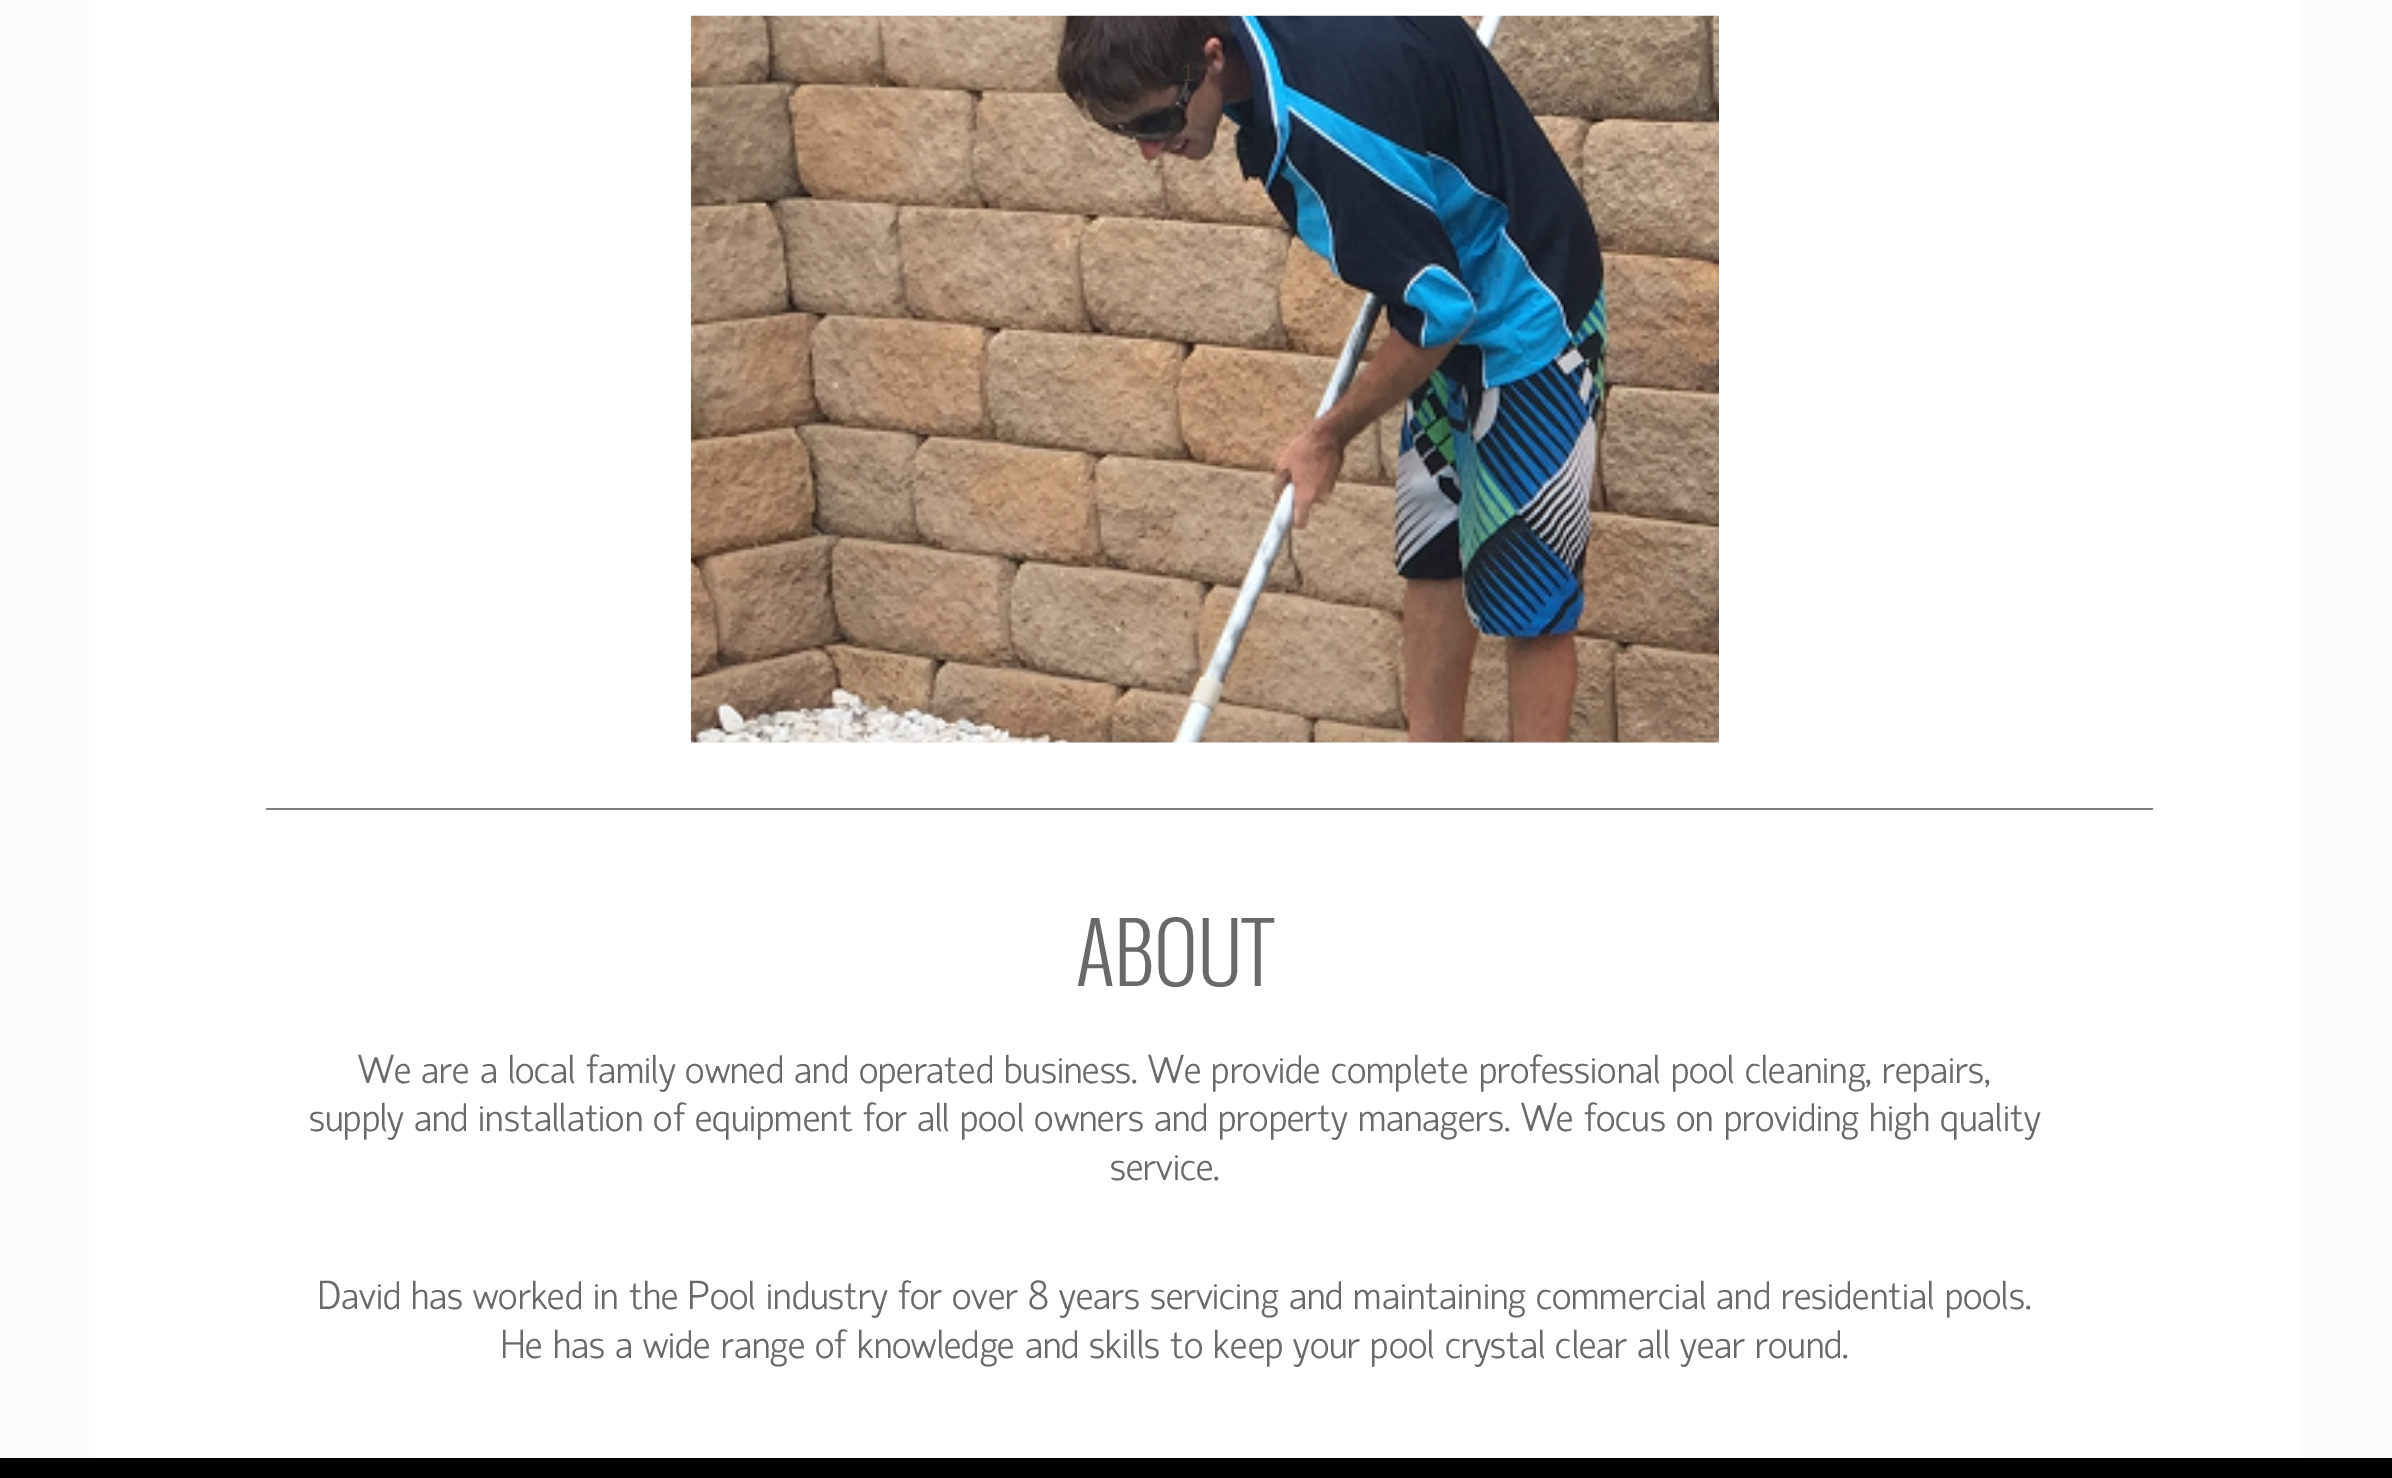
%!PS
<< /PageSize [2392 1478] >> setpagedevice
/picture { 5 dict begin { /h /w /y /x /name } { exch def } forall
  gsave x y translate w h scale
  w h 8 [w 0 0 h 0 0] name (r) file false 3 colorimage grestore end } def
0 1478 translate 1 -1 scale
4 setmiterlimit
0.988 setgray
0 0 2392 1478 rectfill
1 setgray
95 0 2205 1458 rectfill
(img1.rgb) 690 15 1029 728 picture
/LiberationSans-Regular [25 0 0 -25 0 0] selectfont
0.275 0.216 0.216 setrgbcolor
1181 81 moveto (1) show
0.502 setgray
266 808 1887 2 rectfill
/Oswald-Light [81 0 0 -81 0 0] selectfont
0.412 setgray
1076 986 moveto (ABOUT) show
/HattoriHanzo-Light [40.5 0 0 -40.5 0 0] selectfont
358 1083 moveto (We are a local family owned and operated business. We provide complete professional pool cleaning, repairs,) show
309 1131 moveto (supply and installation of equipment for all pool owners and property managers. We focus on providing high quality) show
1110 1180 moveto (service.) show
318 1309 moveto (David has worked in the Pool industry for over 8 years servicing and maintaining commercial and residential pools.) show
501 1358 moveto (He has a wide range of knowledge and skills to keep your pool crystal clear all year round.) show
0 setgray
0 1458 2392 20 rectfill
showpage
